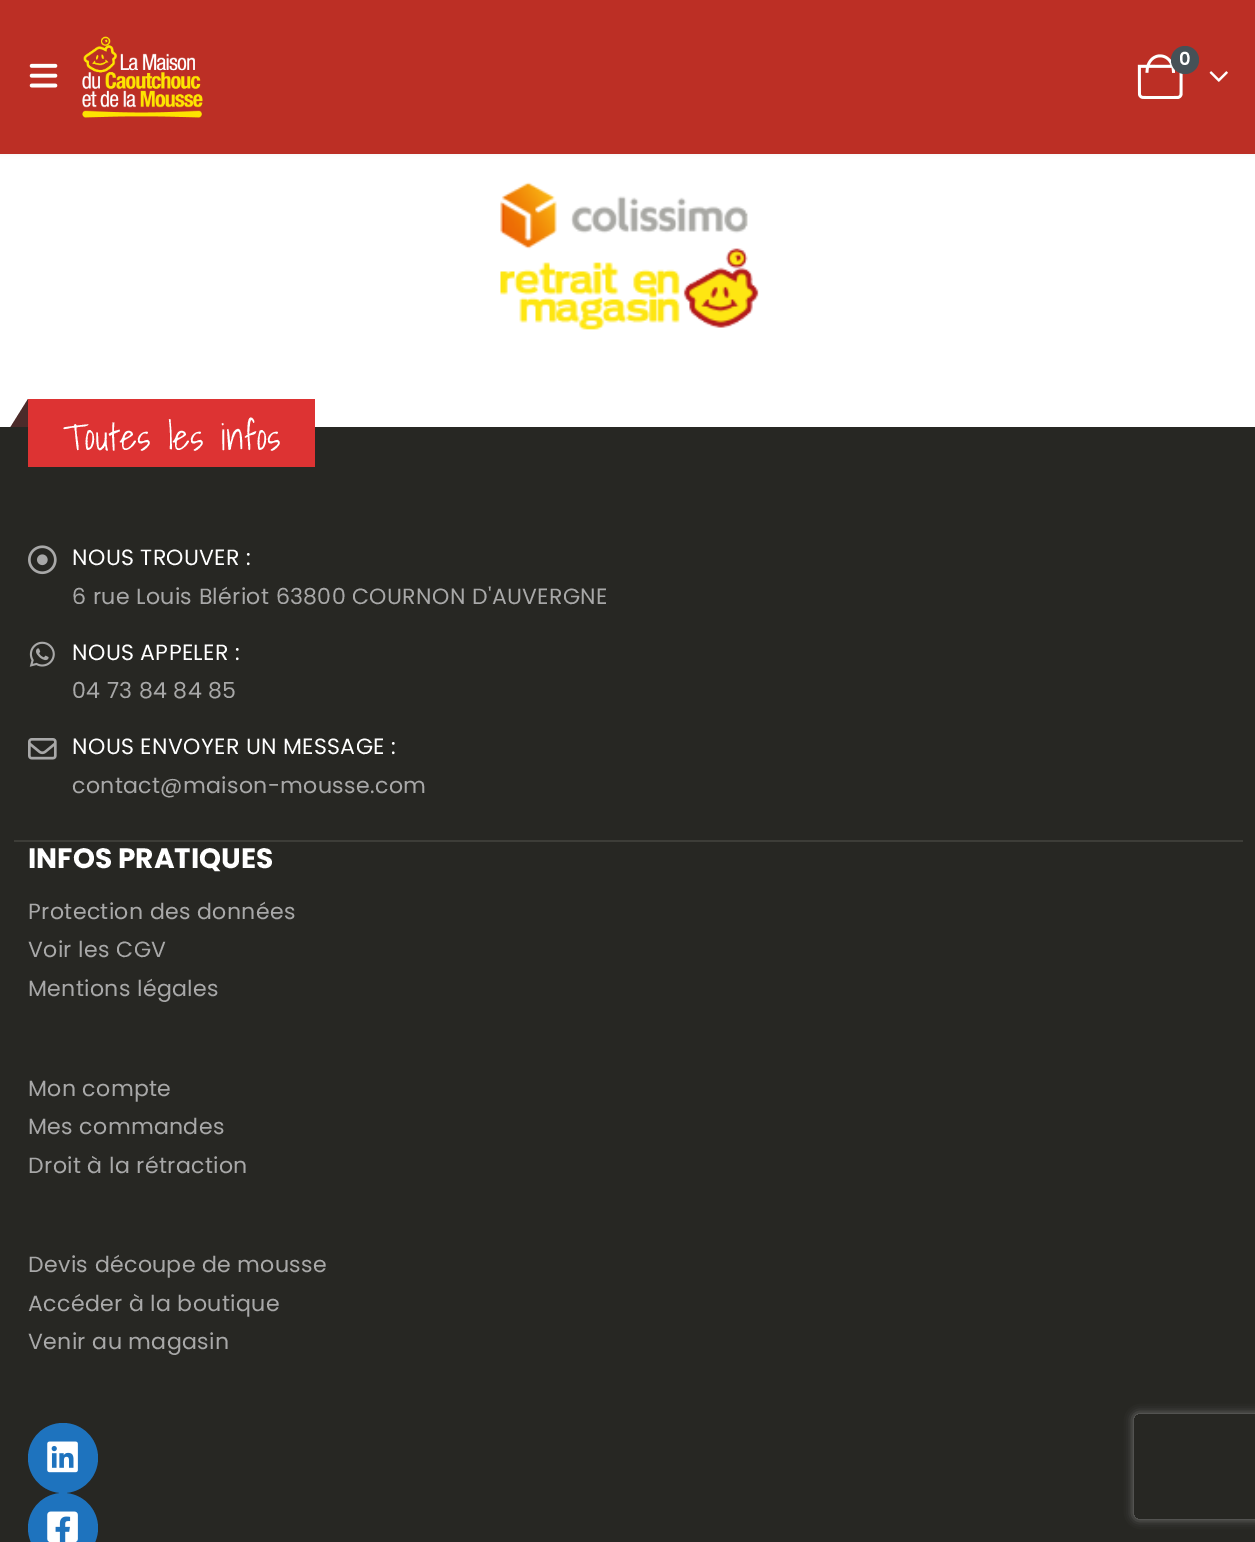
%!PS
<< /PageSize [1255 1542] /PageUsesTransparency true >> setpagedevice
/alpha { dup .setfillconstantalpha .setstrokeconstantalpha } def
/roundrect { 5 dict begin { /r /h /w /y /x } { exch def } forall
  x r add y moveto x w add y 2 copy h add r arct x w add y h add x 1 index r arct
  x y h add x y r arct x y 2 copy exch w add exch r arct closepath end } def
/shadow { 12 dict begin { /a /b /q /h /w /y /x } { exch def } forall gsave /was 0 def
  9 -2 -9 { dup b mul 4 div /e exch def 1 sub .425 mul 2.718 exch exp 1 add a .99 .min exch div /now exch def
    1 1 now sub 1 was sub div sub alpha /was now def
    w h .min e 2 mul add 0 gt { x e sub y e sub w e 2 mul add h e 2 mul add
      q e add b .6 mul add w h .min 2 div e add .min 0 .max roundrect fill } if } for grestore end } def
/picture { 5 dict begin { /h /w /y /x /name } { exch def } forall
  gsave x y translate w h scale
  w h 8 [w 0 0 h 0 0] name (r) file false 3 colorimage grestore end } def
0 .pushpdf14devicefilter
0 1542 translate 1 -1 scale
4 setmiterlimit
1 setgray
0 0 1255 1542 rectfill
0 setgray
0 0 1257 154 0 2.5 0.06 shadow
0.737 0.184 0.145 setrgbcolor
0 0 1255 154 rectfill
(img1.rgb) 29 63 29 25 picture
(img2.rgb) 82 36 121 82 picture
(img3.rgb) 1137 54 46 45 picture
0.275 0.318 0.341 setrgbcolor
newpath 1185 60 14 0 360 arc closepath fill
/Poppins-SemiBold [18 0 0 -18 0 0] selectfont
1 setgray
1179 65 moveto 0.35 0 (0) ashow
(img4.rgb) 1209 71 19 11 picture
(img5.rgb) 500 182 259 148 picture
0.153 0.153 0.137 setrgbcolor
0 427 1255 1115 rectfill
0.867 0.2 0.2 setrgbcolor
28 399 287 68 rectfill
0.298 0.169 0.165 setrgbcolor
newpath 28 399 moveto 28 427 lineto 10.5 427 lineto closepath fill
/ShadowsIntoLight-Light [36.5 0 0 -36.5 0 0] selectfont
1 setgray
63 450 moveto 0.35 0 (Toutes les infos) ashow
(img6.rgb) 28 545 29 30 picture
/Poppins-Regular [22.05 0 0 -22.05 0 0] selectfont
72 565 moveto 0.35 0 (NOUS TROUVER :) ashow
0.659 setgray
72 604 moveto 0.35 0 (6 rue Louis Blériot 63800 COURNON D'AUVERGNE) ashow
(img7.rgb) 29 641 26 26 picture
1 setgray
72 660 moveto 0.35 0 (NOUS APPELER :) ashow
0.659 setgray
72 698 moveto 0.35 0 (04 73 84 84 85) ashow
(img8.rgb) 28 738 29 22 picture
1 setgray
72 754 moveto 0.35 0 (NOUS ENVOYER UN MESSAGE :) ashow
0.659 setgray
72 793 moveto 0.35 0 (contact@maison-mousse.com) ashow
0.239 0.239 0.22 setrgbcolor
14 840 1229 2 rectfill
/Poppins-Bold [28 0 0 -28 0 0] selectfont
1 setgray
28 868 moveto (INFOS PRATIQUES) show
/Poppins-Regular [22.05 0 0 -22.05 0 0] selectfont
0.659 setgray
28 919 moveto 0.35 0 (Protection des données) ashow
28 957 moveto 0.35 0 (Voir les CGV) ashow
28 996 moveto 0.35 0 (Mentions légales) ashow
28 1096 moveto 0.35 0 (Mon compte) ashow
28 1134 moveto 0.35 0 (Mes commandes) ashow
28 1173 moveto 0.35 0 (Droit à la rétraction) ashow
28 1272 moveto 0.35 0 (Devis découpe de mousse) ashow
28 1311 moveto 0.35 0 (Accéder à la boutique) ashow
28 1349 moveto 0.35 0 (Venir au magasin) ashow
0.118 0.451 0.745 setrgbcolor
newpath 63 1458 35 0 360 arc closepath fill
(img9.rgb) 47 1441 31 32 picture
newpath 63 1528 35 0 360 arc closepath fill
(img10.rgb) 47 1511 31 31 picture
gsave
newpath 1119 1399 moveto 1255 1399 lineto 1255 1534 lineto 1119 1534 lineto closepath 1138 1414 moveto 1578 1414 lineto 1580 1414 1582 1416 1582 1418 curveto 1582 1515 lineto 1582 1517 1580 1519 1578 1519 curveto 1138 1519 lineto 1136 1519 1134 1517 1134 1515 curveto 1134 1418 lineto 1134 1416 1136 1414 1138 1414 curveto closepath eoclip newpath
0.502 setgray
1134 1414 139 105 4 4.5 1 shadow
grestore
.poppdf14devicefilter showpage
